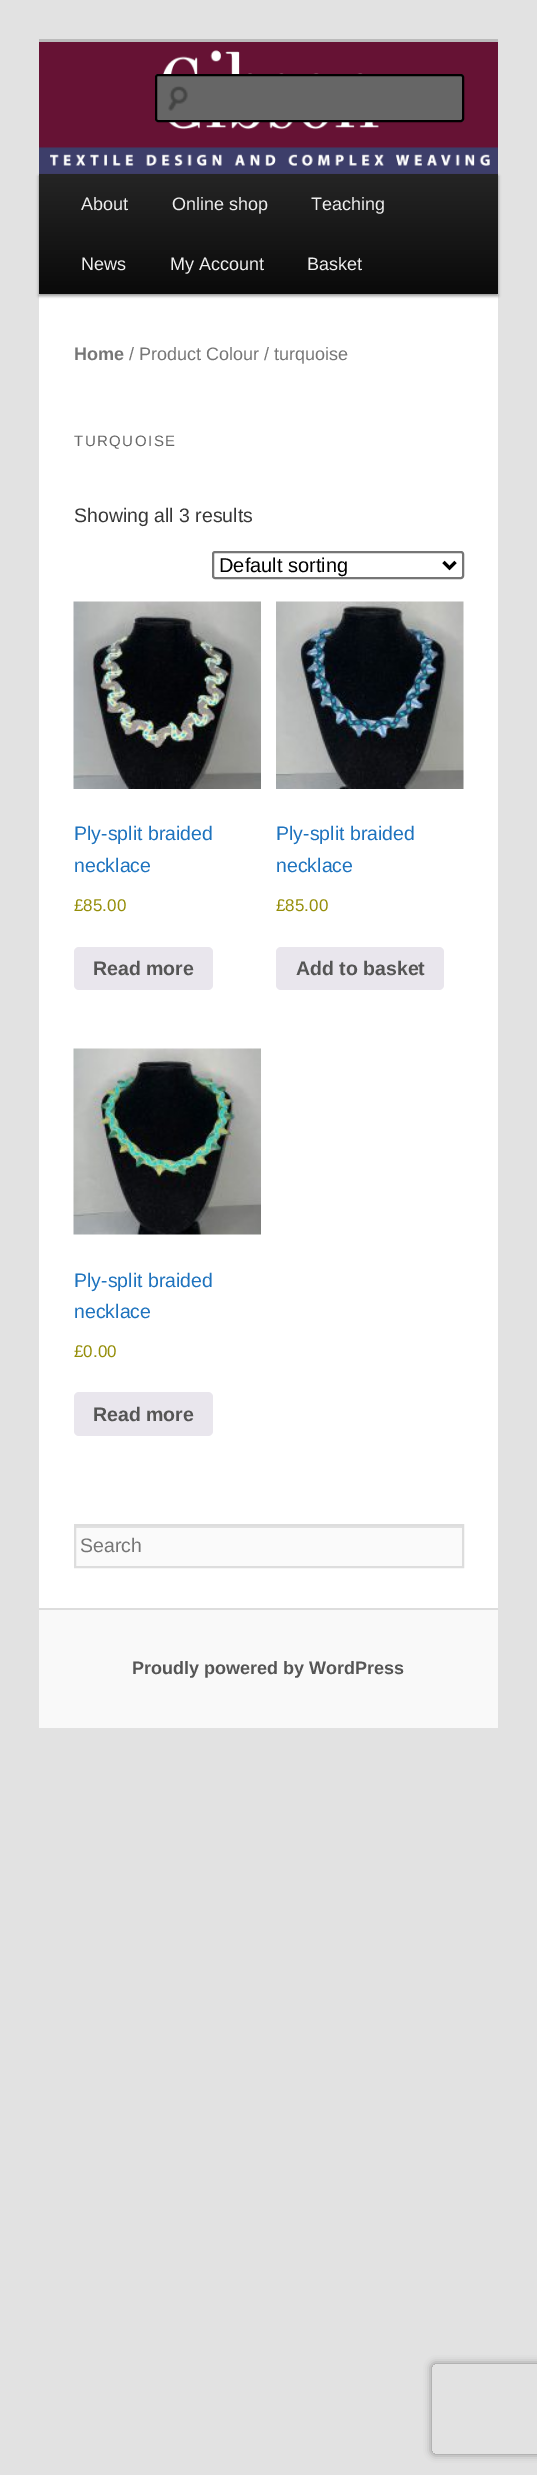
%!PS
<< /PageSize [537 2475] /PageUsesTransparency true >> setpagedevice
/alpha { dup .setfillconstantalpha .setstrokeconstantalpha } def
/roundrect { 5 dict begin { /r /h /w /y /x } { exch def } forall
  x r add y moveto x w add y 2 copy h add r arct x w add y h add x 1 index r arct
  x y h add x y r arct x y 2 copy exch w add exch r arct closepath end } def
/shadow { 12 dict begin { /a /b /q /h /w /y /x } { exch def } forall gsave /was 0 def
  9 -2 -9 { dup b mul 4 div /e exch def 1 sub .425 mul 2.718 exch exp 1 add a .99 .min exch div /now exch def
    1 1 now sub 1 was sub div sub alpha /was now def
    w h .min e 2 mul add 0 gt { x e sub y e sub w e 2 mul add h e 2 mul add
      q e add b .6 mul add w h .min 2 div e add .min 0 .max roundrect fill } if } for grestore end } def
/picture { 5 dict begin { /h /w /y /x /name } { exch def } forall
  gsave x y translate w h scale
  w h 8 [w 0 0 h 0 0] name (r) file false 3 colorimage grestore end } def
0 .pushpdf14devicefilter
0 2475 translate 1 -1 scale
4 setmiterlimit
0.886 setgray
0 0 537 2475 rectfill
1 setgray
39 294 459 1314 rectfill
0.733 setgray
39 39 459 3 rectfill
0 setgray
39 176 459 120 0 1.5 0.4 shadow
(img1.rgb) 39 42 459 132 picture
0.4 setgray
155 74 309 48 3 roundrect fill
(img2.rgb) 168 86 20 25 picture
0.361 setgray
newpath 158 76 moveto 460 76 lineto 461 76 462 77 462 78 curveto 462 76 lineto 460 75 lineto 158 75 lineto 156 75 156 77 156 78 curveto 156 77 157 76 158 76 curveto closepath fill
0 setgray
2 setlinewidth
156 75 307 46 2 roundrect stroke
gsave newpath 39 174 moveto 498 174 lineto 498 294 lineto 39 294 lineto closepath clip newpath
<< /ShadingType 2 /ColorSpace /DeviceRGB /Coords [269 174 269 294] /Extend [true true] /Function << /FunctionType 2 /Domain [0 1] /C0 [0.145 0.145 0.145] /C1 [0.039 0.039 0.039] /N 1 >> >> shfill grestore
/LiberationSans-Regular [18 0 0 -18 0 0] selectfont
0.933 setgray
81 210 moveto (About) show
172 210 moveto (Online shop) show
311 210 moveto (Teaching) show
81 270 moveto (News) show
170 270 moveto (My Account) show
307 270 moveto (Basket) show
/LiberationSans-Bold [18 0 0 -18 0 0] selectfont
0.463 setgray
74 360 moveto (Home) show
/LiberationSans-Regular [18 0 0 -18 0 0] selectfont
129 360 moveto (/ Product Colour / turquoise) show
/LiberationSans-Regular [15 0 0 -15 0 0] selectfont
0.4 setgray
74 446 moveto 1.5 0 (TURQUOISE) ashow
/LiberationSans-Regular [19.5 0 0 -19.5 0 0] selectfont
0.216 setgray
74 522 moveto (Showing all 3 results) show
0.463 setgray
213 552 250 26 2 roundrect stroke
0 setgray
3 setlinewidth
newpath 443.5 562 moveto 449.5 568 lineto 455.5 562 lineto stroke
/LiberationSans-Regular [20 0 0 -20 0 0] selectfont
219 572 moveto (Default sorting) show
(img3.rgb) 73 601 188 188 picture
/LiberationSans-Regular [19.5 0 0 -19.5 0 0] selectfont
0.118 0.451 0.745 setrgbcolor
74 840 moveto (Ply-split braided) show
74 872 moveto (necklace) show
/LiberationSans-Regular [17 0 0 -17 0 0] selectfont
0.584 0.557 0.035 setrgbcolor
74 911 moveto (£85.00) show
0.914 0.902 0.929 setrgbcolor
74 947 139 43 5 roundrect fill
/LiberationSans-Bold [19.5 0 0 -19.5 0 0] selectfont
0.333 setgray
93 975 moveto (Read more) show
(img4.rgb) 276 601 188 188 picture
/LiberationSans-Regular [19.5 0 0 -19.5 0 0] selectfont
0.118 0.451 0.745 setrgbcolor
276 840 moveto (Ply-split braided) show
276 872 moveto (necklace) show
/LiberationSans-Regular [17 0 0 -17 0 0] selectfont
0.584 0.557 0.035 setrgbcolor
276 911 moveto (£85.00) show
0.914 0.902 0.929 setrgbcolor
276 947 168 43 5 roundrect fill
/LiberationSans-Bold [19.5 0 0 -19.5 0 0] selectfont
0.333 setgray
296 975 moveto (Add to basket) show
(img5.rgb) 73 1048 188 187 picture
/LiberationSans-Regular [19.5 0 0 -19.5 0 0] selectfont
0.118 0.451 0.745 setrgbcolor
74 1287 moveto (Ply-split braided) show
74 1318 moveto (necklace) show
/LiberationSans-Regular [17 0 0 -17 0 0] selectfont
0.584 0.557 0.035 setrgbcolor
74 1357 moveto (£0.00) show
0.914 0.902 0.929 setrgbcolor
74 1392 139 44 5 roundrect fill
/LiberationSans-Bold [19.5 0 0 -19.5 0 0] selectfont
0.333 setgray
93 1421 moveto (Read more) show
0.98 setgray
76 1528 386 38 rectfill
0.882 setgray
75 1526 387 2 rectfill
0.867 setgray
2 setlinewidth
75 1525 388 42 rectstroke
/LiberationSans-Regular [19.5 0 0 -19.5 0 0] selectfont
0.463 setgray
80 1552 moveto (Search) show
0.976 setgray
39 1610 459 118 rectfill
0.867 setgray
39 1608 459 2 rectfill
/LiberationSans-Bold [18 0 0 -18 0 0] selectfont
0.333 setgray
132 1674 moveto (Proudly powered by WordPress) show
gsave
newpath 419 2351 moveto 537 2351 lineto 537 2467 lineto 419 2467 lineto closepath 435 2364 moveto 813 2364 lineto 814.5 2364 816 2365.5 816 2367 curveto 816 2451 lineto 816 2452.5 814.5 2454 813 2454 curveto 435 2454 lineto 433.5 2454 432 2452.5 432 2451 curveto 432 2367 lineto 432 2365.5 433.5 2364 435 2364 curveto closepath eoclip newpath
0.502 setgray
432 2364 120 90 3 4 1 shadow
grestore
.poppdf14devicefilter showpage
